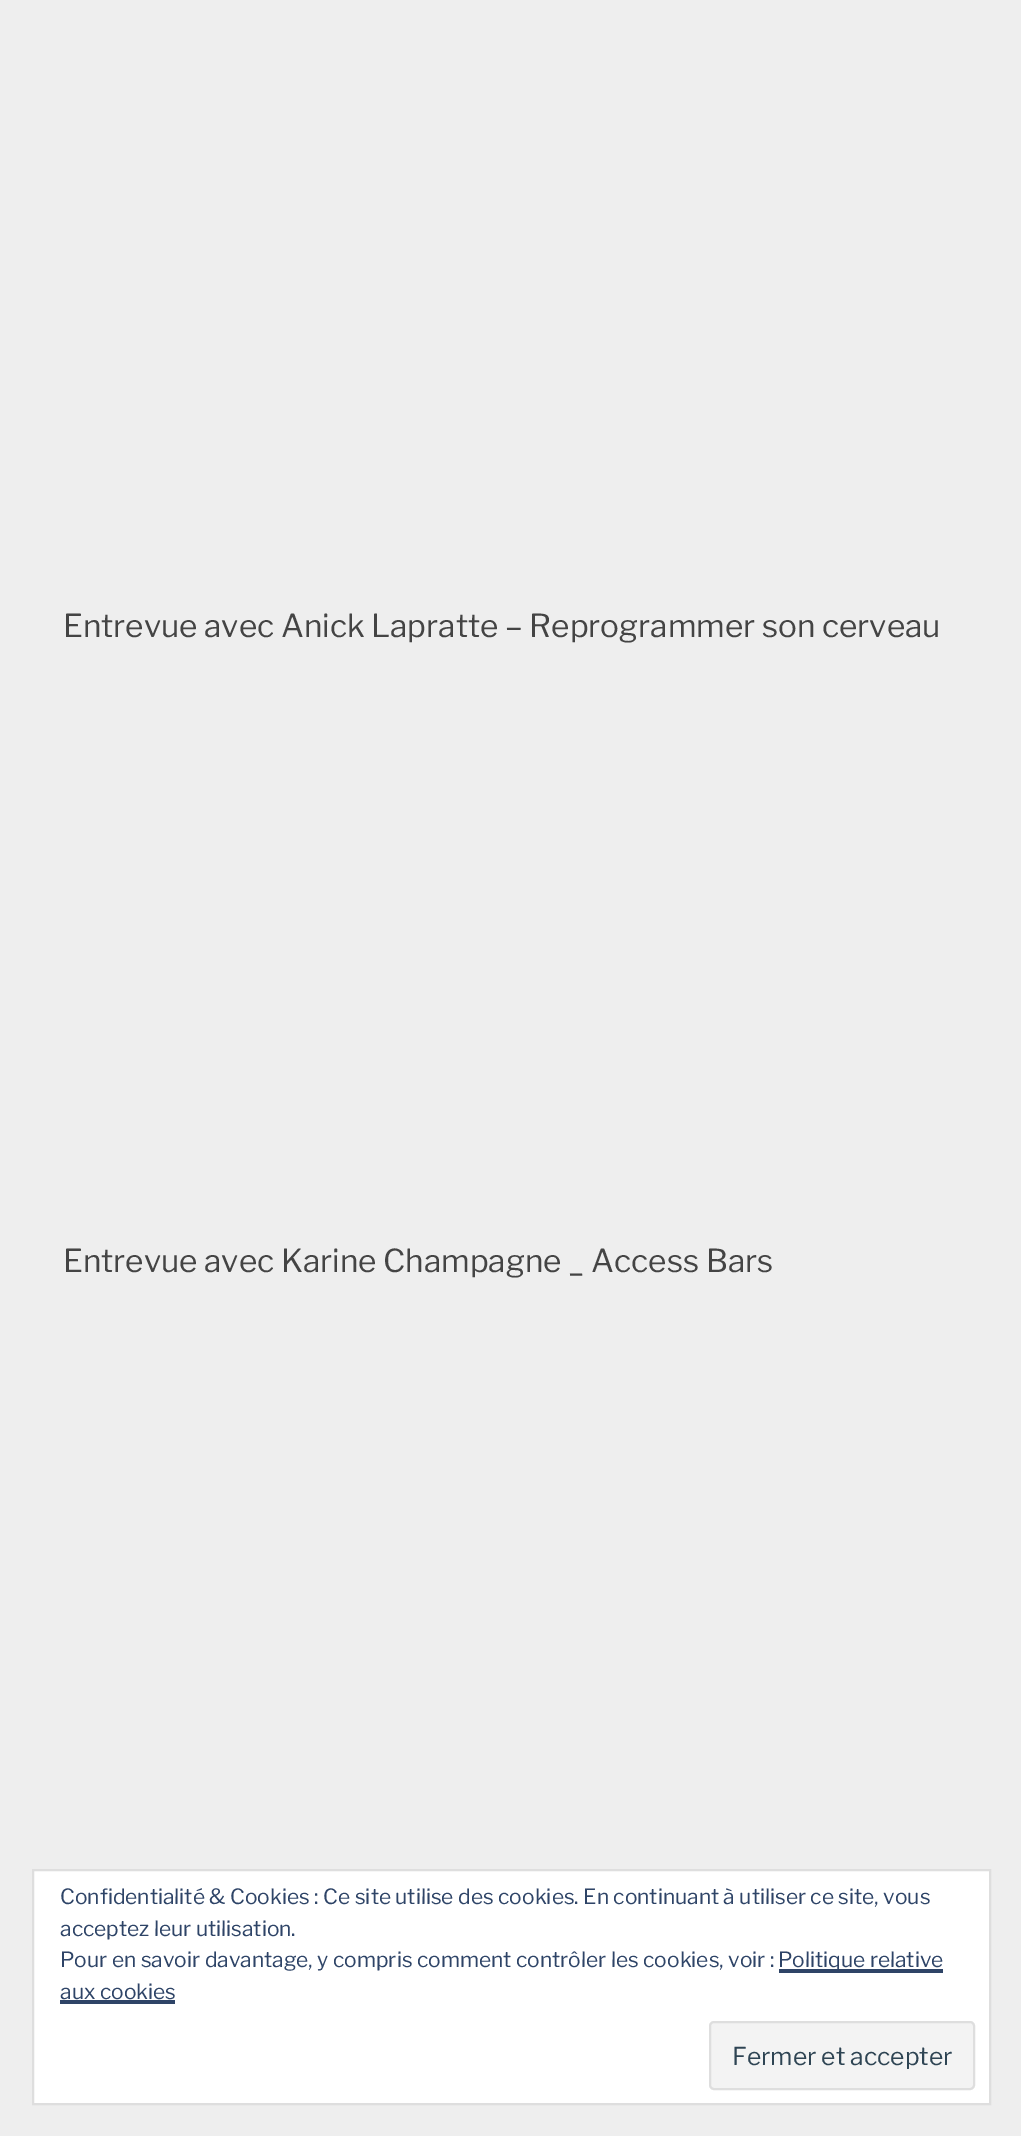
%!PS
<< /PageSize [1021 2136] >> setpagedevice
/roundrect { 5 dict begin { /r /h /w /y /x } { exch def } forall
  x r add y moveto x w add y 2 copy h add r arct x w add y h add x 1 index r arct
  x y h add x y r arct x y 2 copy exch w add exch r arct closepath end } def
0 2136 translate 1 -1 scale
4 setmiterlimit
0.933 setgray
0 0 1021 2136 rectfill
/LibreFranklin-Thin [31.5 0 0 -31.5 0 0] selectfont
0.267 setgray
63 637 moveto (Entrevue avec Anick Lapratte – Reprogrammer son cerveau) show
63 1272 moveto (Entrevue avec Karine Champagne _ Access Bars) show
1 setgray
newpath 33 1870 moveto 990 1870 lineto 990 2104 lineto 33 2104 lineto closepath gsave fill grestore
0.871 setgray
2 setlinewidth
stroke
/LibreFranklin-Thin [21 0 0 -21 0 0] selectfont
0.18 0.267 0.404 setrgbcolor
60 1904 moveto (Confidentialité & Cookies : Ce site utilise des cookies. En continuant à utiliser ce site, vous) show
60 1936 moveto (acceptez leur utilisation.) show
60 1967 moveto (Pour en savoir davantage, y compris comment contrôler les cookies, voir :) show
779 1969 164 4 rectfill
778 1967 moveto (Politique relative) show
60 1999 moveto (aux cookies) show
60 2000 115 4 rectfill
0.953 setgray
710 2022 264 67 4 roundrect gsave fill grestore
0.871 setgray
stroke
/LibreFranklin-Thin [24.5 0 0 -24.5 0 0] selectfont
0.18 0.267 0.325 setrgbcolor
732 2065 moveto (Fermer et accepter) show
showpage
